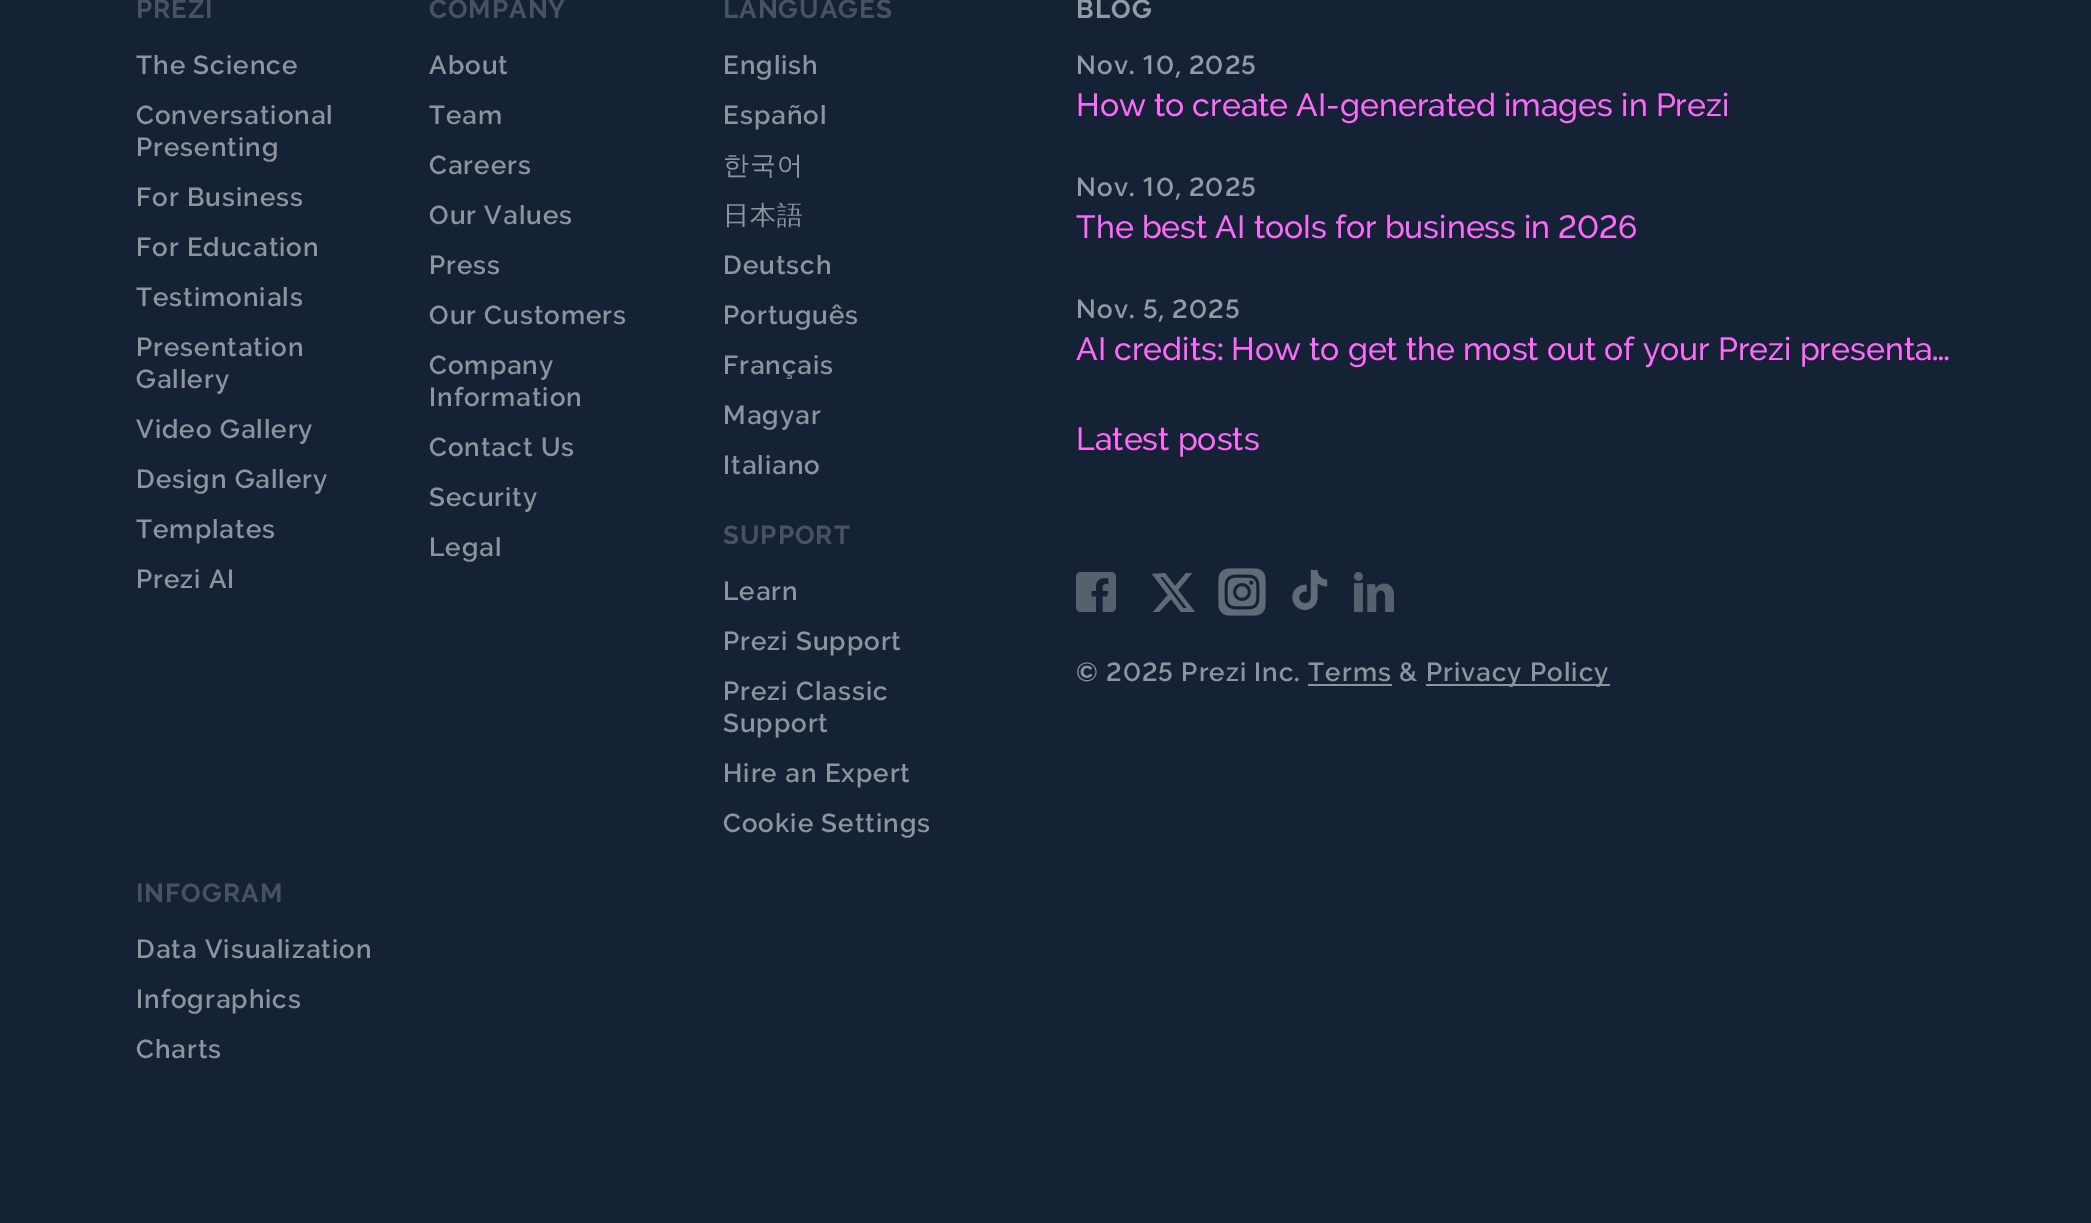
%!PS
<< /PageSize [2091 1223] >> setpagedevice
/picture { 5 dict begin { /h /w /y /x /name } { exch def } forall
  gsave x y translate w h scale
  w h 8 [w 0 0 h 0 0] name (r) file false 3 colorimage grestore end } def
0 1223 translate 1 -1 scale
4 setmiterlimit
0.082 0.133 0.208 setrgbcolor
0 0 2091 1223 rectfill
/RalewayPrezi-Bold [26 0 0 -26 0 0] selectfont
0.278 0.322 0.384 setrgbcolor
136 18 moveto 1 0 (PREZI) ashow
/RalewayPrezi-SemiBold [26 0 0 -26 0 0] selectfont
0.557 0.576 0.612 setrgbcolor
136 74 moveto 1 0 (The Science) ashow
136 124 moveto 1 0 (Conversational) ashow
136 156 moveto 1 0 (Presenting) ashow
136 206 moveto 1 0 (For Business) ashow
136 256 moveto 1 0 (For Education) ashow
136 306 moveto 1 0 (Testimonials) ashow
136 356 moveto 1 0 (Presentation) ashow
136 388 moveto 1 0 (Gallery) ashow
136 438 moveto 1 0 (Video Gallery) ashow
136 488 moveto 1 0 (Design Gallery) ashow
136 538 moveto 1 0 (Templates) ashow
136 588 moveto 1 0 (Prezi AI) ashow
/RalewayPrezi-Bold [26 0 0 -26 0 0] selectfont
0.278 0.322 0.384 setrgbcolor
429 18 moveto 1 0 (COMPANY) ashow
/RalewayPrezi-SemiBold [26 0 0 -26 0 0] selectfont
0.557 0.576 0.612 setrgbcolor
429 74 moveto 1 0 (About) ashow
429 124 moveto 1 0 (Team) ashow
429 174 moveto 1 0 (Careers) ashow
429 224 moveto 1 0 (Our Values) ashow
429 274 moveto 1 0 (Press) ashow
429 324 moveto 1 0 (Our Customers) ashow
429 374 moveto 1 0 (Company) ashow
429 406 moveto 1 0 (Information) ashow
429 456 moveto 1 0 (Contact Us) ashow
429 506 moveto 1 0 (Security) ashow
429 556 moveto 1 0 (Legal) ashow
/RalewayPrezi-Bold [26 0 0 -26 0 0] selectfont
0.278 0.322 0.384 setrgbcolor
723 18 moveto 1 0 (LANGUAGES) ashow
/RalewayPrezi-SemiBold [26 0 0 -26 0 0] selectfont
0.557 0.576 0.612 setrgbcolor
723 74 moveto 1 0 (English) ashow
723 124 moveto 1 0 (Español) ashow
/WenQuanYiZenHei-Medium [26 0 0 -26 0 0] selectfont
723 174 moveto 1 0 (한국어) ashow
723 224 moveto 1 0 (日本語) ashow
/RalewayPrezi-SemiBold [26 0 0 -26 0 0] selectfont
723 274 moveto 1 0 (Deutsch) ashow
723 324 moveto 1 0 (Português) ashow
723 374 moveto 1 0 (Français) ashow
723 424 moveto 1 0 (Magyar) ashow
723 474 moveto 1 0 (Italiano) ashow
/RalewayPrezi-Bold [26 0 0 -26 0 0] selectfont
0.278 0.322 0.384 setrgbcolor
723 544 moveto 1 0 (SUPPORT) ashow
/RalewayPrezi-SemiBold [26 0 0 -26 0 0] selectfont
0.557 0.576 0.612 setrgbcolor
723 600 moveto 1 0 (Learn) ashow
723 650 moveto 1 0 (Prezi Support) ashow
723 700 moveto 1 0 (Prezi Classic) ashow
723 732 moveto 1 0 (Support) ashow
723 782 moveto 1 0 (Hire an Expert) ashow
723 832 moveto 1 0 (Cookie Settings) ashow
/RalewayPrezi-Bold [26 0 0 -26 0 0] selectfont
0.278 0.322 0.384 setrgbcolor
136 902 moveto 1 0 (INFOGRAM) ashow
/RalewayPrezi-SemiBold [26 0 0 -26 0 0] selectfont
0.557 0.576 0.612 setrgbcolor
136 958 moveto 1 0 (Data Visualization) ashow
136 1008 moveto 1 0 (Infographics) ashow
136 1058 moveto 1 0 (Charts) ashow
/RalewayPrezi-Bold [26 0 0 -26 0 0] selectfont
0.573 0.604 0.639 setrgbcolor
1076 18 moveto 1 0 (BLOG) ashow
/RalewayPrezi-SemiBold [26 0 0 -26 0 0] selectfont
1076 74 moveto 1 0 (Nov. 10, 2025) ashow
/RalewayPrezi-Medium [32 0 0 -32 0 0] selectfont
0.992 0.416 0.98 setrgbcolor
1076 116 moveto (How to create AI-generated images in Prezi) show
/RalewayPrezi-SemiBold [26 0 0 -26 0 0] selectfont
0.573 0.604 0.639 setrgbcolor
1076 196 moveto 1 0 (Nov. 10, 2025) ashow
/RalewayPrezi-Medium [32 0 0 -32 0 0] selectfont
0.992 0.416 0.98 setrgbcolor
1076 238 moveto (The best AI tools for business in 2026) show
/RalewayPrezi-SemiBold [26 0 0 -26 0 0] selectfont
0.573 0.604 0.639 setrgbcolor
1076 318 moveto 1 0 (Nov. 5, 2025) ashow
/RalewayPrezi-Medium [32 0 0 -32 0 0] selectfont
0.992 0.416 0.98 setrgbcolor
1076 360 moveto (AI credits: How to get the most out of your Prezi presenta…) show
1076 450 moveto (Latest posts) show
(img1.rgb) 1076 572 40 40 picture
0.38 0.416 0.467 setrgbcolor
newpath 1153 612 moveto 1168 595 lineto 1152 574 lineto 1165 573 lineto 1175 586 lineto 1186 573 lineto 1192 573 lineto 1178 590 lineto 1195 612 lineto 1181 612 lineto 1171 599 lineto 1159 612 lineto closepath 1187 608 moveto 1163 577 lineto 1160 577 lineto 1183 608 lineto closepath fill
(img2.rgb) 1218 568 48 48 picture
(img3.rgb) 1292 570 36 40 picture
(img4.rgb) 1354 572 40 40 picture
/RalewayPrezi-SemiBold [26 0 0 -26 0 0] selectfont
0.557 0.576 0.612 setrgbcolor
1076 681 moveto 1 0 (© 2025 Prezi Inc. Terms &) ashow
1426 684 184 2 rectfill
1426 681 moveto 1 0 (Privacy Policy) ashow
1308 684 84 2 rectfill
showpage
